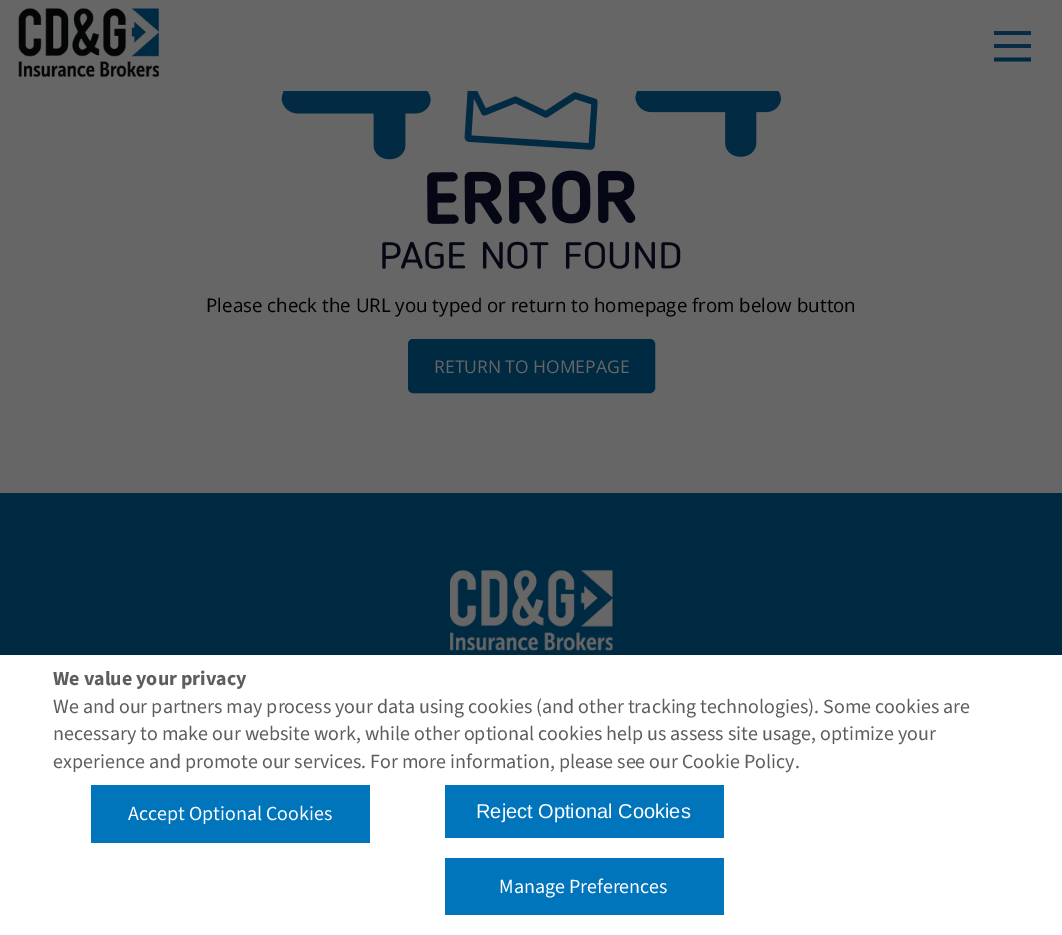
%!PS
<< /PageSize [1062 935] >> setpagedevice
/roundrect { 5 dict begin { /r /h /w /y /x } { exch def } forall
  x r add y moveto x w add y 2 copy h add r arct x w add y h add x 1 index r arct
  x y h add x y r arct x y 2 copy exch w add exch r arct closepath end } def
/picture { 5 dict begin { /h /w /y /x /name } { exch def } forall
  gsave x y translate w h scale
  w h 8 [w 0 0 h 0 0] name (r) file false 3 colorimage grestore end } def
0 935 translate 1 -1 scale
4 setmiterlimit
0.4 setgray
0 0 1062 935 rectfill
(img1.rgb) 18 8 141 69 picture
0.024 0.176 0.267 setrgbcolor
994 31 37 4 rectfill
994 44 37 4 rectfill
0 0.165 0.259 setrgbcolor
3.8 setlinewidth
newpath 994 59.5 moveto 1031 59.5 lineto stroke
(img2.rgb) 281 91 500 178 picture
/OpenSans-Regular [18.75 0 0 -18.75 0 0] selectfont
0 setgray
206 312 moveto (Please check the URL you typed or return to homepage from below button) show
0 0.165 0.259 setrgbcolor
408.5 339.5 246 53 4.5 roundrect gsave fill grestore
1 setlinewidth
stroke
/OpenSans-Regular [17.5 0 0 -17.5 0 0] selectfont
0.4 setgray
434 373 moveto (RETURN TO HOMEPAGE) show
0 0.165 0.259 setrgbcolor
0 493 1062 162 rectfill
(img3.rgb) 450 570 163 81 picture
1 setgray
0 655 1062 280 rectfill
/SourceSans3-Bold [20 0 0 -20 0 0] selectfont
0.365 setgray
53 685 moveto (We value your privacy) show
/SourceSans3-Regular [20 0 0 -20 0 0] selectfont
53 713 moveto (We and our partners may process your data using cookies \(and other tracking technologies\). Some cookies are) show
53 740 moveto (necessary to make our website work, while other optional cookies help us assess site usage, optimize your) show
53 768 moveto (experience and promote our services. For more information, please see our Cookie Policy.) show
0 0.459 0.737 setrgbcolor
91 785 279 58 rectfill
1 setgray
128 820 moveto (Accept Optional Cookies) show
0 0.459 0.737 setrgbcolor
445 785 279 53 rectfill
/LiberationSans-Regular [20 0 0 -20 0 0] selectfont
1 setgray
476 818 moveto (Reject Optional Cookies) show
0 0.459 0.737 setrgbcolor
445 858 279 57 rectfill
/SourceSans3-Regular [20 0 0 -20 0 0] selectfont
1 setgray
499 893 moveto (Manage Preferences) show
showpage
